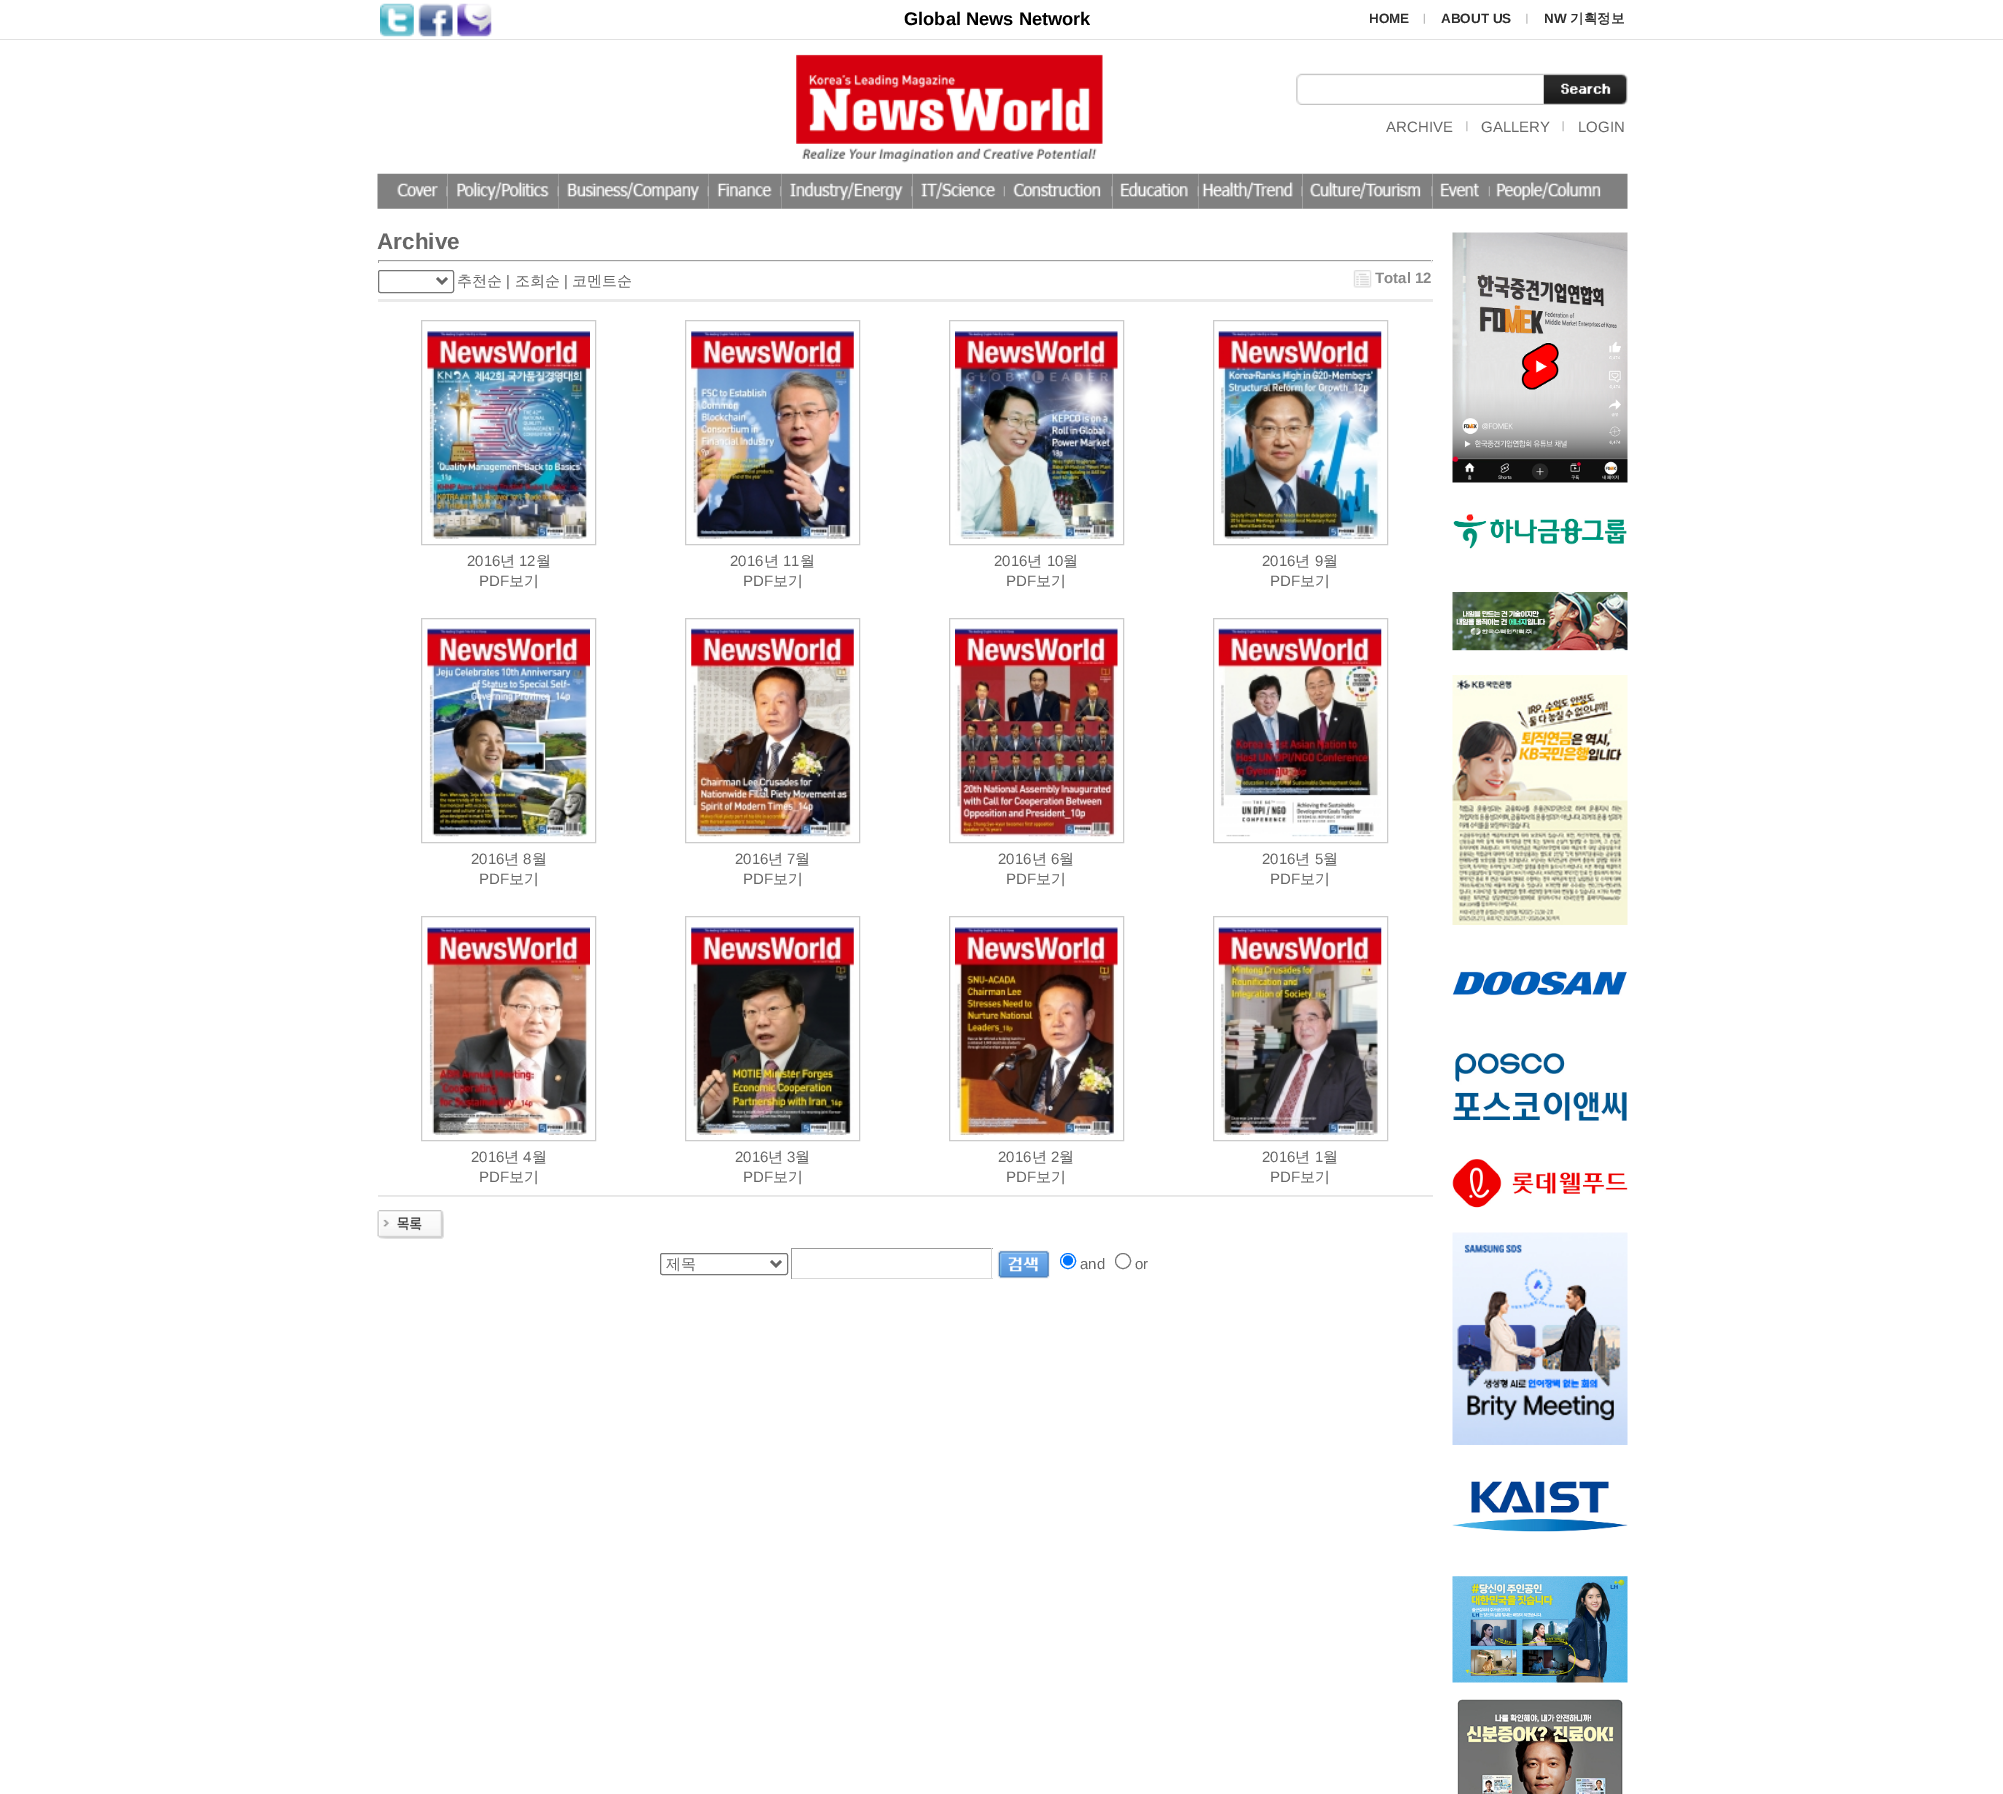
%!PS
<< /PageSize [2003 1794] >> setpagedevice
/roundrect { 5 dict begin { /r /h /w /y /x } { exch def } forall
  x r add y moveto x w add y 2 copy h add r arct x w add y h add x 1 index r arct
  x y h add x y r arct x y 2 copy exch w add exch r arct closepath end } def
/picture { 5 dict begin { /h /w /y /x /name } { exch def } forall
  gsave x y translate w h scale
  w h 8 [w 0 0 h 0 0] name (r) file false 3 colorimage grestore end } def
0 1794 translate 1 -1 scale
4 setmiterlimit
1 setgray
0 0 2003 1794 rectfill
0.882 setgray
0 39 2003 1 rectfill
(img1.rgb) 380 3 34 34 picture
(img2.rgb) 418 3 35 34 picture
(img3.rgb) 457 3 35 34 picture
/LiberationSans-Bold [18.25 0 0 -18.25 0 0] selectfont
0 setgray
904 25 moveto (Global News Network) show
/LiberationSans-Bold [13.5 0 0 -13.5 0 0] selectfont
0.176 setgray
1369 23 moveto (HOME) show
(img4.rgb) 1423 13 2 11 picture
1441 23 moveto (ABOUT US) show
(img5.rgb) 1526 13 2 11 picture
1544 23 moveto (NW) show
/WenQuanYiZenHei-Bold [13.5 0 0 -13.5 0 0] selectfont
1570 23 moveto (기획정보) show
(img6.rgb) 796 54 307 109 picture
(img7.rgb) 1296 73 248 32 picture
(img8.rgb) 1543 73 85 32 picture
/LiberationSans-Regular [15 0 0 -15 0 0] selectfont
0.4 setgray
1386 132 moveto (ARCHIVE) show
(img9.rgb) 1466 121 2 11 picture
1481 132 moveto (GALLERY) show
(img10.rgb) 1562 121 2 11 picture
1578 132 moveto (LOGIN) show
(img11.rgb) 377 173 71 36 picture
(img12.rgb) 447 173 112 36 picture
(img13.rgb) 558 173 151 36 picture
(img14.rgb) 708 173 74 36 picture
(img15.rgb) 781 173 132 36 picture
(img16.rgb) 912 173 93 36 picture
(img17.rgb) 1005 173 108 36 picture
(img18.rgb) 1112 173 87 36 picture
(img19.rgb) 1198 173 105 36 picture
(img20.rgb) 1302 173 131 36 picture
(img21.rgb) 1432 173 58 36 picture
(img22.rgb) 1490 173 138 36 picture
/LiberationSans-Bold [22.5 0 0 -22.5 0 0] selectfont
377 249 moveto (Archive) show
0.624 setgray
378 260 1055 1 rectfill
0.933 setgray
1431 260 1 3 rectfill
378 261 1055 1 rectfill
0.624 setgray
378 260 1 3 rectfill
0.463 setgray
378.5 270.5 75 22 2 roundrect stroke
0.4 setgray
2.5 setlinewidth
newpath 437 278 moveto 442 283 lineto 447 278 lineto stroke
/WenQuanYiZenHei-Medium [15 0 0 -15 0 0] selectfont
457 286 moveto (추천순) show
/LiberationSans-Regular [15 0 0 -15 0 0] selectfont
506 286 moveto (|) show
/WenQuanYiZenHei-Medium [15 0 0 -15 0 0] selectfont
515 286 moveto (조회순) show
/LiberationSans-Regular [15 0 0 -15 0 0] selectfont
564 286 moveto (|) show
/WenQuanYiZenHei-Medium [15 0 0 -15 0 0] selectfont
572 286 moveto (코멘트순) show
(img23.rgb) 1353 270 19 18 picture
/LiberationSans-Bold [15 0 0 -15 0 0] selectfont
0.533 setgray
1375 283 moveto (Total 12) show
0.918 setgray
378 299 1055 3 rectfill
0.8 setgray
1 setlinewidth
421.5 320.5 174 224 rectstroke
(img24.rgb) 427 331 163 208 picture
/LiberationSans-Regular [15 0 0 -15 0 0] selectfont
0.4 setgray
467 566 moveto (2016) show
/WenQuanYiZenHei-Medium [15 0 0 -15 0 0] selectfont
500 566 moveto (년) show
/LiberationSans-Regular [15 0 0 -15 0 0] selectfont
519 566 moveto (12) show
/WenQuanYiZenHei-Medium [15 0 0 -15 0 0] selectfont
536 566 moveto (월) show
/LiberationSans-Regular [15 0 0 -15 0 0] selectfont
479 586 moveto (PDF) show
/WenQuanYiZenHei-Medium [15 0 0 -15 0 0] selectfont
509 586 moveto (보기) show
0.8 setgray
685.5 320.5 174 224 rectstroke
(img25.rgb) 691 331 163 208 picture
/LiberationSans-Regular [15 0 0 -15 0 0] selectfont
0.4 setgray
730 566 moveto (2016) show
/WenQuanYiZenHei-Medium [15 0 0 -15 0 0] selectfont
764 566 moveto (년) show
/LiberationSans-Regular [15 0 0 -15 0 0] selectfont
783 566 moveto (11) show
/WenQuanYiZenHei-Medium [15 0 0 -15 0 0] selectfont
800 566 moveto (월) show
/LiberationSans-Regular [15 0 0 -15 0 0] selectfont
743 586 moveto (PDF) show
/WenQuanYiZenHei-Medium [15 0 0 -15 0 0] selectfont
773 586 moveto (보기) show
0.8 setgray
949.5 320.5 174 224 rectstroke
(img26.rgb) 955 331 163 208 picture
/LiberationSans-Regular [15 0 0 -15 0 0] selectfont
0.4 setgray
994 566 moveto (2016) show
/WenQuanYiZenHei-Medium [15 0 0 -15 0 0] selectfont
1027 566 moveto (년) show
/LiberationSans-Regular [15 0 0 -15 0 0] selectfont
1047 566 moveto (10) show
/WenQuanYiZenHei-Medium [15 0 0 -15 0 0] selectfont
1063 566 moveto (월) show
/LiberationSans-Regular [15 0 0 -15 0 0] selectfont
1006 586 moveto (PDF) show
/WenQuanYiZenHei-Medium [15 0 0 -15 0 0] selectfont
1036 586 moveto (보기) show
0.8 setgray
1213.5 320.5 174 224 rectstroke
(img27.rgb) 1218 331 164 208 picture
/LiberationSans-Regular [15 0 0 -15 0 0] selectfont
0.4 setgray
1262 566 moveto (2016) show
/WenQuanYiZenHei-Medium [15 0 0 -15 0 0] selectfont
1295 566 moveto (년) show
/LiberationSans-Regular [15 0 0 -15 0 0] selectfont
1315 566 moveto (9) show
/WenQuanYiZenHei-Medium [15 0 0 -15 0 0] selectfont
1323 566 moveto (월) show
/LiberationSans-Regular [15 0 0 -15 0 0] selectfont
1270 586 moveto (PDF) show
/WenQuanYiZenHei-Medium [15 0 0 -15 0 0] selectfont
1300 586 moveto (보기) show
0.8 setgray
421.5 618.5 174 224 rectstroke
(img28.rgb) 427 628 163 209 picture
/LiberationSans-Regular [15 0 0 -15 0 0] selectfont
0.4 setgray
471 864 moveto (2016) show
/WenQuanYiZenHei-Medium [15 0 0 -15 0 0] selectfont
504 864 moveto (년) show
/LiberationSans-Regular [15 0 0 -15 0 0] selectfont
523 864 moveto (8) show
/WenQuanYiZenHei-Medium [15 0 0 -15 0 0] selectfont
532 864 moveto (월) show
/LiberationSans-Regular [15 0 0 -15 0 0] selectfont
479 884 moveto (PDF) show
/WenQuanYiZenHei-Medium [15 0 0 -15 0 0] selectfont
509 884 moveto (보기) show
0.8 setgray
685.5 618.5 174 224 rectstroke
(img29.rgb) 691 628 163 209 picture
/LiberationSans-Regular [15 0 0 -15 0 0] selectfont
0.4 setgray
735 864 moveto (2016) show
/WenQuanYiZenHei-Medium [15 0 0 -15 0 0] selectfont
768 864 moveto (년) show
/LiberationSans-Regular [15 0 0 -15 0 0] selectfont
787 864 moveto (7) show
/WenQuanYiZenHei-Medium [15 0 0 -15 0 0] selectfont
795 864 moveto (월) show
/LiberationSans-Regular [15 0 0 -15 0 0] selectfont
743 884 moveto (PDF) show
/WenQuanYiZenHei-Medium [15 0 0 -15 0 0] selectfont
773 884 moveto (보기) show
0.8 setgray
949.5 618.5 174 224 rectstroke
(img30.rgb) 955 628 163 209 picture
/LiberationSans-Regular [15 0 0 -15 0 0] selectfont
0.4 setgray
998 864 moveto (2016) show
/WenQuanYiZenHei-Medium [15 0 0 -15 0 0] selectfont
1032 864 moveto (년) show
/LiberationSans-Regular [15 0 0 -15 0 0] selectfont
1051 864 moveto (6) show
/WenQuanYiZenHei-Medium [15 0 0 -15 0 0] selectfont
1059 864 moveto (월) show
/LiberationSans-Regular [15 0 0 -15 0 0] selectfont
1006 884 moveto (PDF) show
/WenQuanYiZenHei-Medium [15 0 0 -15 0 0] selectfont
1036 884 moveto (보기) show
0.8 setgray
1213.5 618.5 174 224 rectstroke
(img31.rgb) 1218 628 164 209 picture
/LiberationSans-Regular [15 0 0 -15 0 0] selectfont
0.4 setgray
1262 864 moveto (2016) show
/WenQuanYiZenHei-Medium [15 0 0 -15 0 0] selectfont
1295 864 moveto (년) show
/LiberationSans-Regular [15 0 0 -15 0 0] selectfont
1315 864 moveto (5) show
/WenQuanYiZenHei-Medium [15 0 0 -15 0 0] selectfont
1323 864 moveto (월) show
/LiberationSans-Regular [15 0 0 -15 0 0] selectfont
1270 884 moveto (PDF) show
/WenQuanYiZenHei-Medium [15 0 0 -15 0 0] selectfont
1300 884 moveto (보기) show
0.8 setgray
421.5 916.5 174 224 rectstroke
(img32.rgb) 427 927 163 208 picture
/LiberationSans-Regular [15 0 0 -15 0 0] selectfont
0.4 setgray
471 1162 moveto (2016) show
/WenQuanYiZenHei-Medium [15 0 0 -15 0 0] selectfont
504 1162 moveto (년) show
/LiberationSans-Regular [15 0 0 -15 0 0] selectfont
523 1162 moveto (4) show
/WenQuanYiZenHei-Medium [15 0 0 -15 0 0] selectfont
532 1162 moveto (월) show
/LiberationSans-Regular [15 0 0 -15 0 0] selectfont
479 1182 moveto (PDF) show
/WenQuanYiZenHei-Medium [15 0 0 -15 0 0] selectfont
509 1182 moveto (보기) show
0.8 setgray
685.5 916.5 174 224 rectstroke
(img33.rgb) 691 927 163 208 picture
/LiberationSans-Regular [15 0 0 -15 0 0] selectfont
0.4 setgray
735 1162 moveto (2016) show
/WenQuanYiZenHei-Medium [15 0 0 -15 0 0] selectfont
768 1162 moveto (년) show
/LiberationSans-Regular [15 0 0 -15 0 0] selectfont
787 1162 moveto (3) show
/WenQuanYiZenHei-Medium [15 0 0 -15 0 0] selectfont
795 1162 moveto (월) show
/LiberationSans-Regular [15 0 0 -15 0 0] selectfont
743 1182 moveto (PDF) show
/WenQuanYiZenHei-Medium [15 0 0 -15 0 0] selectfont
773 1182 moveto (보기) show
0.8 setgray
949.5 916.5 174 224 rectstroke
(img34.rgb) 955 927 163 208 picture
/LiberationSans-Regular [15 0 0 -15 0 0] selectfont
0.4 setgray
998 1162 moveto (2016) show
/WenQuanYiZenHei-Medium [15 0 0 -15 0 0] selectfont
1032 1162 moveto (년) show
/LiberationSans-Regular [15 0 0 -15 0 0] selectfont
1051 1162 moveto (2) show
/WenQuanYiZenHei-Medium [15 0 0 -15 0 0] selectfont
1059 1162 moveto (월) show
/LiberationSans-Regular [15 0 0 -15 0 0] selectfont
1006 1182 moveto (PDF) show
/WenQuanYiZenHei-Medium [15 0 0 -15 0 0] selectfont
1036 1182 moveto (보기) show
0.8 setgray
1213.5 916.5 174 224 rectstroke
(img35.rgb) 1218 927 164 208 picture
/LiberationSans-Regular [15 0 0 -15 0 0] selectfont
0.4 setgray
1262 1162 moveto (2016) show
/WenQuanYiZenHei-Medium [15 0 0 -15 0 0] selectfont
1295 1162 moveto (년) show
/LiberationSans-Regular [15 0 0 -15 0 0] selectfont
1315 1162 moveto (1) show
/WenQuanYiZenHei-Medium [15 0 0 -15 0 0] selectfont
1323 1162 moveto (월) show
/LiberationSans-Regular [15 0 0 -15 0 0] selectfont
1270 1182 moveto (PDF) show
/WenQuanYiZenHei-Medium [15 0 0 -15 0 0] selectfont
1300 1182 moveto (보기) show
0.906 setgray
378 1195 1055 1 rectfill
0.918 setgray
378 1196 1055 1 rectfill
(img36.rgb) 377 1210 67 29 picture
0.463 setgray
660.5 1253.5 127 21 2 roundrect stroke
0.4 setgray
2.5 setlinewidth
newpath 771 1261 moveto 776 1266 lineto 781 1261 lineto stroke
666 1269 moveto (제목) show
0.604 setgray
791 1248 202 1 rectfill
0.847 setgray
991 1248 1 31 rectfill
791 1278 202 1 rectfill
0.604 setgray
791 1248 1 31 rectfill
(img37.rgb) 997 1250 53 29 picture
0 0.459 1 setrgbcolor
1 setlinewidth
newpath 1068 1261 7.5 0 360 arc closepath stroke
newpath 1068 1260.5 5 0 360 arc closepath fill
/LiberationSans-Regular [15 0 0 -15 0 0] selectfont
0.4 setgray
1080 1269 moveto (and) show
0.463 setgray
newpath 1123 1261 7.5 0 360 arc closepath stroke
0.4 setgray
1135 1269 moveto (or) show
(img38.rgb) 1452 232 176 251 picture
(img39.rgb) 1453 514 174 35 picture
(img40.rgb) 1452 592 176 59 picture
(img41.rgb) 1452 675 176 250 picture
(img42.rgb) 1452 971 175 25 picture
(img43.rgb) 1453 1053 174 68 picture
(img44.rgb) 1452 1159 176 49 picture
(img45.rgb) 1452 1232 176 213 picture
(img46.rgb) 1452 1481 176 51 picture
(img47.rgb) 1452 1576 176 107 picture
(img48.rgb) 1457 1699 166 95 picture
showpage
